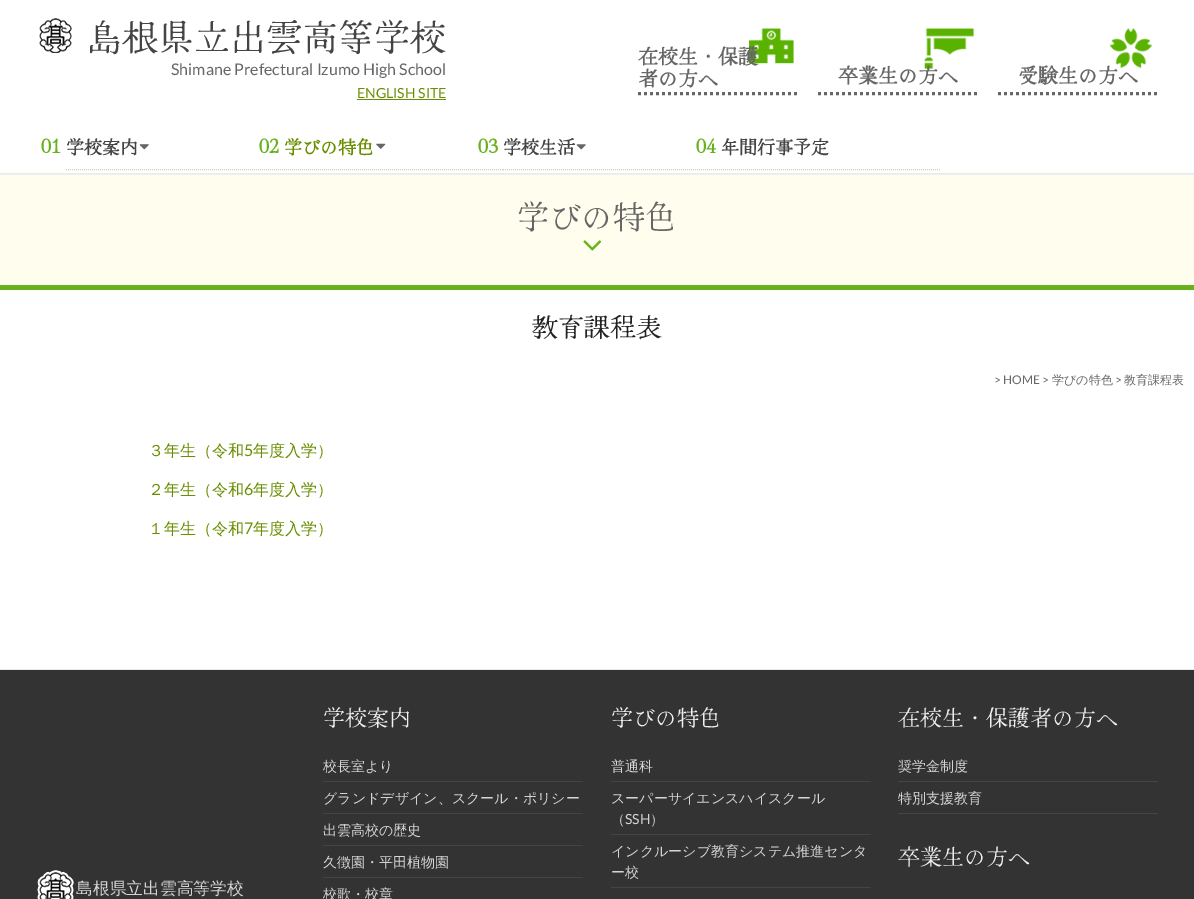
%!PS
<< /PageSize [1194 899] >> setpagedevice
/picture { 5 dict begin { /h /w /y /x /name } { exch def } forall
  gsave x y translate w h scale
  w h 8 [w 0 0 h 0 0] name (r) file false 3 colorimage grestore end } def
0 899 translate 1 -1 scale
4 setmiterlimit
1 setgray
0 0 1194 899 rectfill
0.918 setgray
0 173 1194 1 rectfill
(img1.rgb) 39 18 33 35 picture
/HinaMincho-Regular [36 0 0 -36 0 0] selectfont
0.267 setgray
86 51 moveto (島根県立出雲高等学校) show
/Lato-Regular [16 0 0 -16 0 0] selectfont
0.4 setgray
171 75 moveto (Shimane Prefectural Izumo High School) show
/Lato-Regular [14 0 0 -14 0 0] selectfont
0.408 0.557 0 setrgbcolor
357 98 moveto (ENGLISH SITE) show
357 99 89 1 rectfill
(img2.rgb) 749 28 45 36 picture
0.4 setgray
3 setlinewidth
[3 3] 0 setdash
newpath 638 93.5 moveto 798 93.5 lineto stroke
/HinaMincho-Bold [20 0 0 -20 0 0] selectfont
638 64 moveto (在校生・保護) show
638 86 moveto (者の方へ) show
(img3.rgb) 924 28 50 41 picture
newpath 818 93.5 moveto 978 93.5 lineto stroke
838 83 moveto (卒業生の方へ) show
(img4.rgb) 1110 28 42 40 picture
newpath 998 93.5 moveto 1158 93.5 lineto stroke
1018 83 moveto (受験生の方へ) show
0.8 setgray
1 setlinewidth
[1 1] 0 setdash
newpath 66 169.5 moveto 284 169.5 lineto stroke
0.404 0.698 0.11 setrgbcolor
41 153 moveto (01) show
/HinaMincho-Bold [18 0 0 -18 0 0] selectfont
0.267 setgray
66 154 moveto (学校案内) show
(img5.rgb) 139 144 10 6 picture
0.8 setgray
newpath 284 169.5 moveto 503 169.5 lineto stroke
/HinaMincho-Bold [20 0 0 -20 0 0] selectfont
0.404 0.698 0.11 setrgbcolor
259 153 moveto (02) show
/HinaMincho-Bold [18 0 0 -18 0 0] selectfont
0.408 0.557 0 setrgbcolor
284 154 moveto (学びの特色) show
(img6.rgb) 376 143 10 6 picture
0.8 setgray
newpath 503 169.5 moveto 721 169.5 lineto stroke
/HinaMincho-Bold [20 0 0 -20 0 0] selectfont
0.404 0.698 0.11 setrgbcolor
478 153 moveto (03) show
/HinaMincho-Bold [18 0 0 -18 0 0] selectfont
0.267 setgray
503 154 moveto (学校生活) show
(img7.rgb) 576 144 10 6 picture
0.8 setgray
newpath 721 169.5 moveto 940 169.5 lineto stroke
/HinaMincho-Bold [20 0 0 -20 0 0] selectfont
0.404 0.698 0.11 setrgbcolor
696 153 moveto (04) show
/HinaMincho-Bold [18 0 0 -18 0 0] selectfont
0.267 setgray
721 154 moveto (年間行事予定) show
1 0.992 0.929 setrgbcolor
0 175 1194 110 rectfill
0.933 setgray
0 174 1194 1 rectfill
/HinaMincho-Regular [32 0 0 -32 0 0] selectfont
0.4 setgray
517 229 moveto (学びの特色) show
(img8.rgb) 583 240 19 11 picture
0.404 0.698 0.11 setrgbcolor
0 285 1194 5 rectfill
/HinaMincho-Regular [26 0 0 -26 0 0] selectfont
0.133 setgray
532 337 moveto (教育課程表) show
/Lato-Regular [12 0 0 -12 0 0] selectfont
0.4 setgray
994 384 moveto (> HOME >) show
/WenQuanYiZenHei-Medium [12 0 0 -12 0 0] selectfont
1052 384 moveto (学びの特色) show
/Lato-Regular [12 0 0 -12 0 0] selectfont
1115 384 moveto (>) show
/WenQuanYiZenHei-Medium [12 0 0 -12 0 0] selectfont
1124 384 moveto (教育課程表) show
/WenQuanYiZenHei-Medium [16 0 0 -16 0 0] selectfont
0.408 0.557 0 setrgbcolor
148 456 moveto (３年生（令和) show
/Lato-Regular [16 0 0 -16 0 0] selectfont
244 456 moveto (5) show
/WenQuanYiZenHei-Medium [16 0 0 -16 0 0] selectfont
253 456 moveto (年度入学）) show
148 495 moveto (２年生（令和) show
/Lato-Regular [16 0 0 -16 0 0] selectfont
244 495 moveto (6) show
/WenQuanYiZenHei-Medium [16 0 0 -16 0 0] selectfont
253 495 moveto (年度入学）) show
148 534 moveto (１年生（令和) show
/Lato-Regular [16 0 0 -16 0 0] selectfont
244 534 moveto (7) show
/WenQuanYiZenHei-Medium [16 0 0 -16 0 0] selectfont
253 534 moveto (年度入学）) show
0.2 setgray
0 670 1194 229 rectfill
0.918 setgray
0 669 1194 1 rectfill
/HinaMincho-Regular [22 0 0 -22 0 0] selectfont
0.933 setgray
323 726 moveto (学校案内) show
0.267 setgray
323 781 260 1 rectfill
/WenQuanYiZenHei-Medium [14 0 0 -14 0 0] selectfont
0.835 setgray
323 771 moveto (校長室より) show
0.267 setgray
323 813 260 1 rectfill
0.835 setgray
323 803 moveto (グランドデザイン、スクール・ポリシー) show
0.267 setgray
323 845 260 1 rectfill
0.835 setgray
323 835 moveto (出雲高校の歴史) show
0.267 setgray
323 877 260 1 rectfill
0.835 setgray
323 867 moveto (久徴園・平田植物園) show
323 899 moveto (校歌・校章) show
/HinaMincho-Regular [22 0 0 -22 0 0] selectfont
0.933 setgray
611 726 moveto (学びの特色) show
0.267 setgray
611 781 260 1 rectfill
/WenQuanYiZenHei-Medium [14 0 0 -14 0 0] selectfont
0.835 setgray
611 771 moveto (普通科) show
0.267 setgray
611 834 260 1 rectfill
0.835 setgray
611 803 moveto (スーパーサイエンスハイスクール) show
611 824 moveto (（) show
/Lato-Regular [14 0 0 -14 0 0] selectfont
625 824 moveto (SSH) show
/WenQuanYiZenHei-Medium [14 0 0 -14 0 0] selectfont
650 824 moveto (）) show
0.267 setgray
611 887 260 1 rectfill
0.835 setgray
611 856 moveto (インクルーシブ教育システム推進センタ) show
611 877 moveto (ー校) show
/HinaMincho-Regular [22 0 0 -22 0 0] selectfont
0.933 setgray
898 726 moveto (在校生・保護者の方へ) show
0.267 setgray
898 781 260 1 rectfill
/WenQuanYiZenHei-Medium [14 0 0 -14 0 0] selectfont
0.835 setgray
898 771 moveto (奨学金制度) show
0.267 setgray
898 813 260 1 rectfill
0.835 setgray
898 803 moveto (特別支援教育) show
/HinaMincho-Regular [22 0 0 -22 0 0] selectfont
0.933 setgray
898 865 moveto (卒業生の方へ) show
(img9.rgb) 37 870 37 29 picture
/WenQuanYiZenHei-Medium [16.75 0 0 -16.75 0 0] selectfont
0.835 setgray
76 894 moveto (島根県立出雲高等学校) show
showpage
